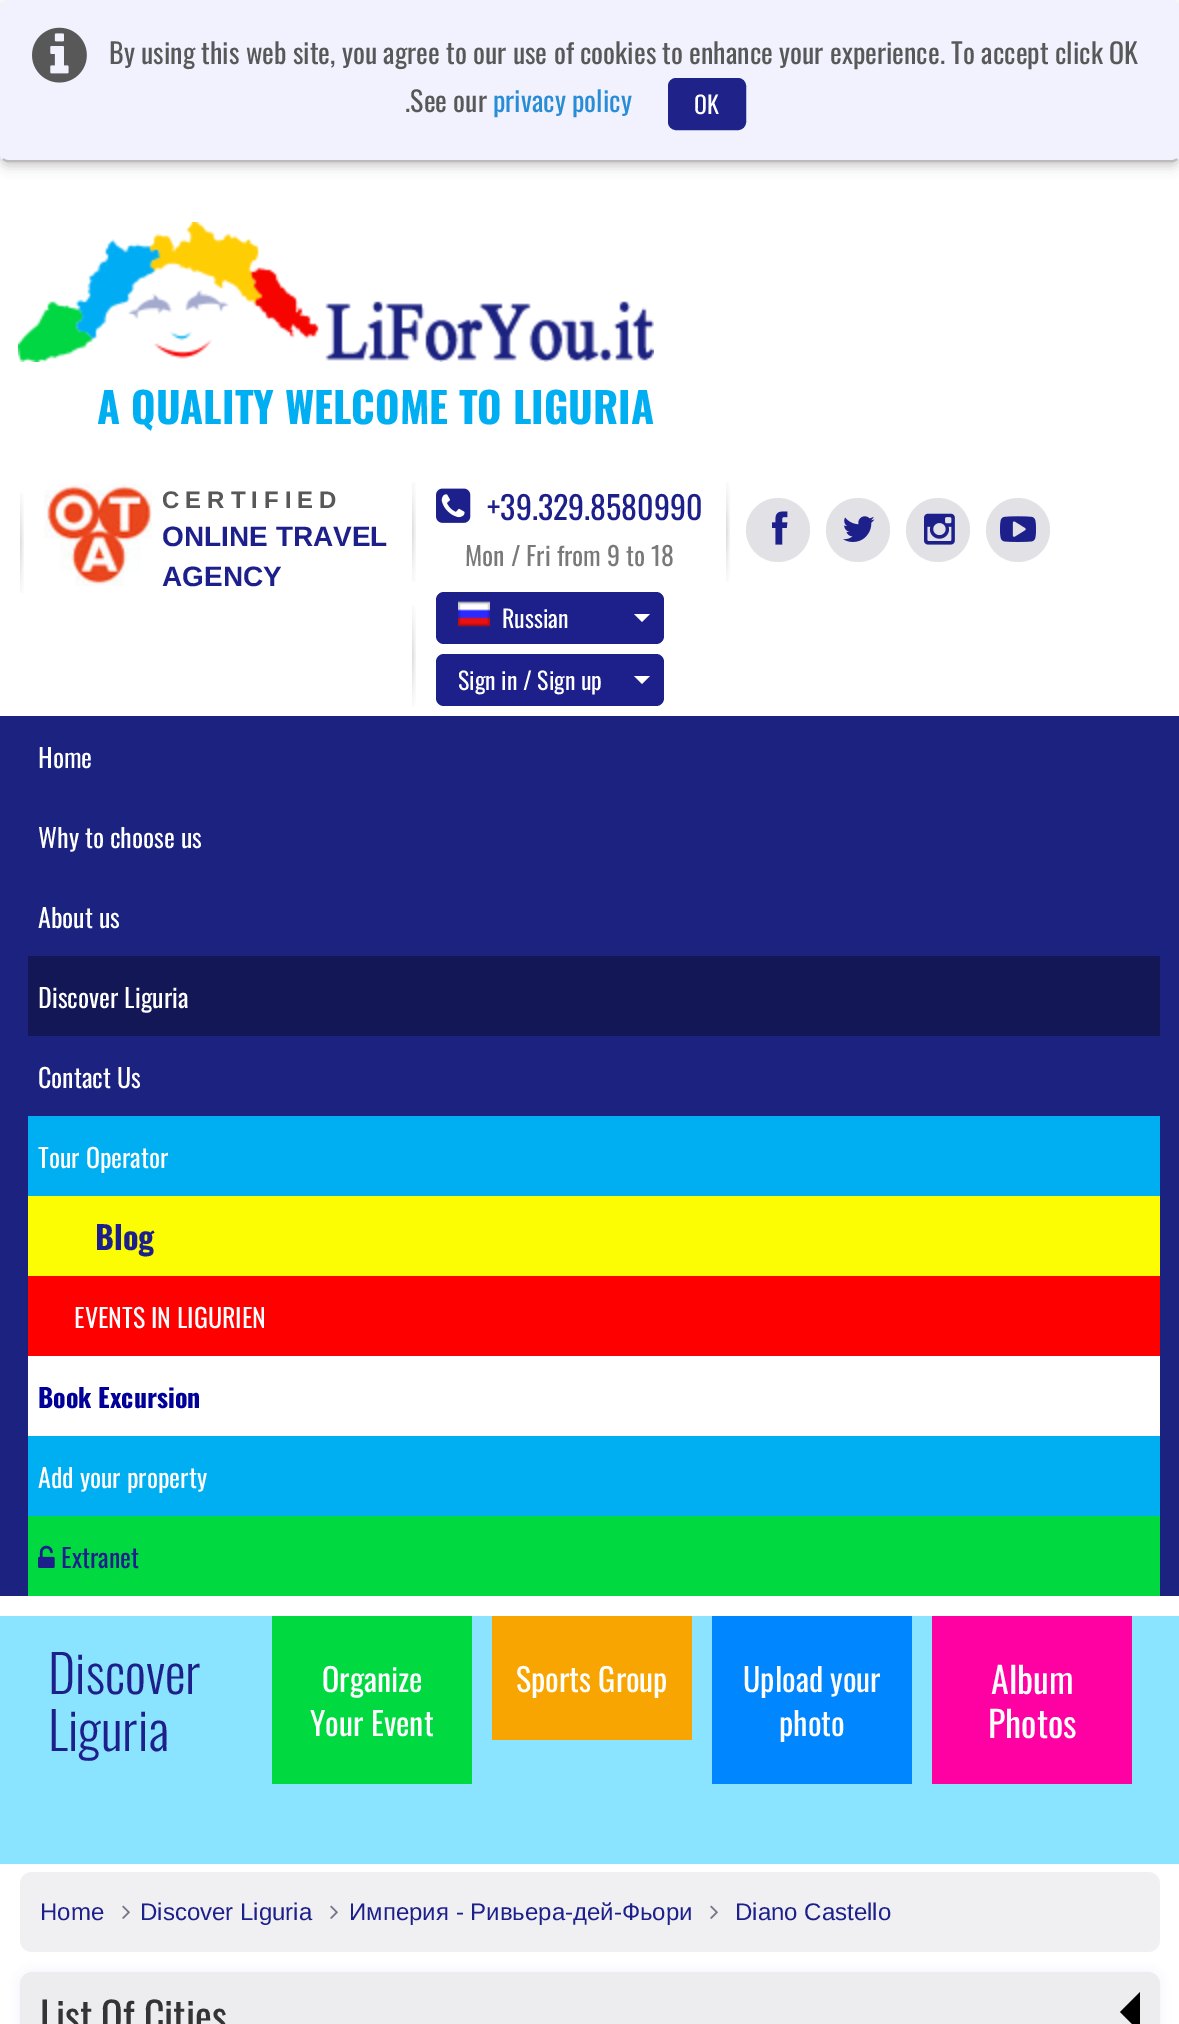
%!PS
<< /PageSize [1179 2024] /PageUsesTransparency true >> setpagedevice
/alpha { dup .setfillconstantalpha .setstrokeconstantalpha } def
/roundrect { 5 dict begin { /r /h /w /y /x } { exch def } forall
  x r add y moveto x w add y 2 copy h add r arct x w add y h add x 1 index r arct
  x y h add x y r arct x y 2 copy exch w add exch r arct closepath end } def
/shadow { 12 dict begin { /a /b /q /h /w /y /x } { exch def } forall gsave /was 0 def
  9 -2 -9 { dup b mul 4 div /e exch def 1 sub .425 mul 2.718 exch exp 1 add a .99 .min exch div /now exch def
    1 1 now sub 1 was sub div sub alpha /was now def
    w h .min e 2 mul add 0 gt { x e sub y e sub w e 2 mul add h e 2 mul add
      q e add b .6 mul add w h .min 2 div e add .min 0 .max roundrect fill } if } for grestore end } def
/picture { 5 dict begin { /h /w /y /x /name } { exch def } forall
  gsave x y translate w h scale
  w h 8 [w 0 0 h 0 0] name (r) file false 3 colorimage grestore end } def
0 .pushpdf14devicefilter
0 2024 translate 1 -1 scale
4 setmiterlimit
1 setgray
0 0 1179 2024 rectfill
0.784 setgray
0 4 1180 162 8 6 1 shadow
0.949 0.949 1 setrgbcolor
0 0 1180 162 8 roundrect fill
0.745 0.729 0.729 setrgbcolor
2 setlinewidth
newpath 1177 159 moveto 1175.5 160.5 1174 161 1172 161 curveto 8 161 lineto 6 161 4.5 160.5 3 159 curveto stroke
(img1.rgb) 32 27 55 56 picture
/Oswald-Regular [28 0 0 -28 0 0] selectfont
0.345 setgray
109 64 moveto (By using this web site, you agree to our use of cookies to enhance your experience. To accept click OK) show
405 112 moveto (.See our) show
0.161 0.553 0.839 setrgbcolor
493 112 moveto (privacy policy) show
0.122 0.133 0.537 setrgbcolor
669 79 76 50 7 roundrect gsave fill grestore
stroke
/Oswald-Regular [24 0 0 -24 0 0] selectfont
1 setgray
694 114 moveto (OK) show
(img2.rgb) 18 222 636 140 picture
/Oswald-Bold [42 0 0 -42 0 0] selectfont
0 0.686 0.949 setrgbcolor
97 424 moveto (A QUALITY WELCOME TO LIGURIA) show
(img3.rgb) 20 493 4 100 picture
(img4.rgb) 44 484 108 102 picture
/LiberationSans-Bold [24 0 0 -24 0 0] selectfont
0.345 setgray
162 508 moveto 6 0 (CERTIFIED) ashow
/LiberationSans-Bold [28 0 0 -28 0 0] selectfont
0.114 0.125 0.545 setrgbcolor
162 546 moveto (ONLINE TRAVEL) show
162 586 moveto (AGENCY) show
(img3.rgb) 412 482 4 100 picture
(img5.rgb) 436 488 35 35 picture
/Oswald-Regular [32 0 0 -32 0 0] selectfont
487 520 moveto (+39.329.8580990) show
/Oswald-Regular [26 0 0 -26 0 0] selectfont
0.475 setgray
465 566 moveto (Mon / Fri from 9 to 18) show
(img3.rgb) 726 482 4 100 picture
0.886 0.882 0.902 setrgbcolor
newpath 778 530 32 0 360 arc closepath fill
(img6.rgb) 772 511 16 34 picture
newpath 858 530 32 0 360 arc closepath fill
(img7.rgb) 843 516 32 26 picture
newpath 938 530 32 0 360 arc closepath fill
(img8.rgb) 924 513 31 32 picture
newpath 1018 530 32 0 360 arc closepath fill
(img9.rgb) 1000 516 36 26 picture
(img3.rgb) 412 606 4 100 picture
0.114 0.125 0.545 setrgbcolor
436 592 228 52 8 roundrect fill
(img10.rgb) 458 601 32 26 picture
/Oswald-Regular [24 0 0 -24 0 0] selectfont
1 setgray
502 628 moveto (Russian) show
newpath 634 614 moveto 650 614 lineto 642 622 lineto closepath fill
0.114 0.125 0.545 setrgbcolor
436 654 228 52 8 roundrect fill
1 setgray
458 690 moveto (Sign in / Sign up) show
newpath 634 676 moveto 650 676 lineto 642 684 lineto closepath fill
0.11 0.133 0.502 setrgbcolor
0 716 1179 880 rectfill
/Oswald-Regular [26 0 0 -26 0 0] selectfont
1 setgray
38 768 moveto (Home) show
38 848 moveto (Why to choose us) show
38 928 moveto (About us) show
0.075 0.09 0.337 setrgbcolor
28 956 1132 80 rectfill
1 setgray
38 1008 moveto (Discover Liguria) show
38 1088 moveto (Contact Us) show
0 0.686 0.949 setrgbcolor
28 1116 1132 80 rectfill
1 setgray
38 1168 moveto (Tour Operator) show
0.988 0.988 0.012 setrgbcolor
28 1196 1132 80 rectfill
/Oswald-Bold [32 0 0 -32 0 0] selectfont
0.114 0.125 0.545 setrgbcolor
95 1250 moveto (Blog) show
1 0 0 setrgbcolor
28 1276 1132 80 rectfill
/Oswald-Regular [26 0 0 -26 0 0] selectfont
1 setgray
74 1328 moveto (EVENTS IN LIGURIEN) show
28 1356 1132 80 rectfill
/Oswald-Bold [26 0 0 -26 0 0] selectfont
0 0 0.6 setrgbcolor
38 1408 moveto (Book Excursion) show
0 0.686 0.949 setrgbcolor
28 1436 1132 80 rectfill
/Oswald-Regular [26 0 0 -26 0 0] selectfont
1 setgray
38 1488 moveto (Add your property) show
0 0.851 0.251 setrgbcolor
28 1516 1132 80 rectfill
(img11.rgb) 38 1545 17 23 picture
0.114 0.125 0.545 setrgbcolor
61 1568 moveto (Extranet) show
0.541 0.894 1 setrgbcolor
0 1616 1179 248 rectfill
/Oswald-Light [52 0 0 -52 0 0] selectfont
0.114 0.125 0.545 setrgbcolor
48 1694 moveto (Discover) show
48 1751 moveto (Liguria) show
0 0.851 0.251 setrgbcolor
272 1616 200 168 rectfill
/Oswald-Regular [32 0 0 -32 0 0] selectfont
1 setgray
322 1692 moveto (Organize) show
310 1736 moveto (Your Event) show
0.973 0.647 0.004 setrgbcolor
492 1616 200 124 rectfill
1 setgray
516 1692 moveto (Sports Group) show
0 0.525 1 setrgbcolor
712 1616 200 168 rectfill
1 setgray
743 1692 moveto (Upload your) show
779 1736 moveto (photo) show
1 0 0.639 setrgbcolor
932 1616 200 168 rectfill
/Oswald-Regular [36 0 0 -36 0 0] selectfont
1 setgray
991 1694 moveto (Album) show
988 1738 moveto (Photos) show
0.941 0.941 0.949 setrgbcolor
20 1872 1140 80 12 roundrect fill
/LiberationSans-Regular [24 0 0 -24 0 0] selectfont
0.114 0.125 0.545 setrgbcolor
40 1920 moveto (Home) show
(img12.rgb) 122 1905 8 14 picture
140 1920 moveto (Discover Liguria) show
(img12.rgb) 330 1905 8 14 picture
349 1920 moveto (Империя - Ривьера-дей-Фьори) show
(img12.rgb) 710 1905 8 14 picture
735 1920 moveto (Diano Castello) show
0.933 0.933 1 setrgbcolor
20 1972 1140 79 12 5 1 shadow
0.929 0.929 0.941 setrgbcolor
newpath 32 1972 moveto 1148 1972 lineto 1154.5 1972 1160 1977.5 1160 1984 curveto 1160 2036 lineto 20 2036 lineto 20 1984 lineto 20 1977.5 25.5 1972 32 1972 curveto closepath fill
/Oswald-Regular [40 0 0 -40 0 0] selectfont
0.204 setgray
40 2032 moveto (List Of Cities) show
0 setgray
newpath 1140 1992 moveto 1140 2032 lineto 1120 2012 lineto closepath fill
.poppdf14devicefilter showpage
